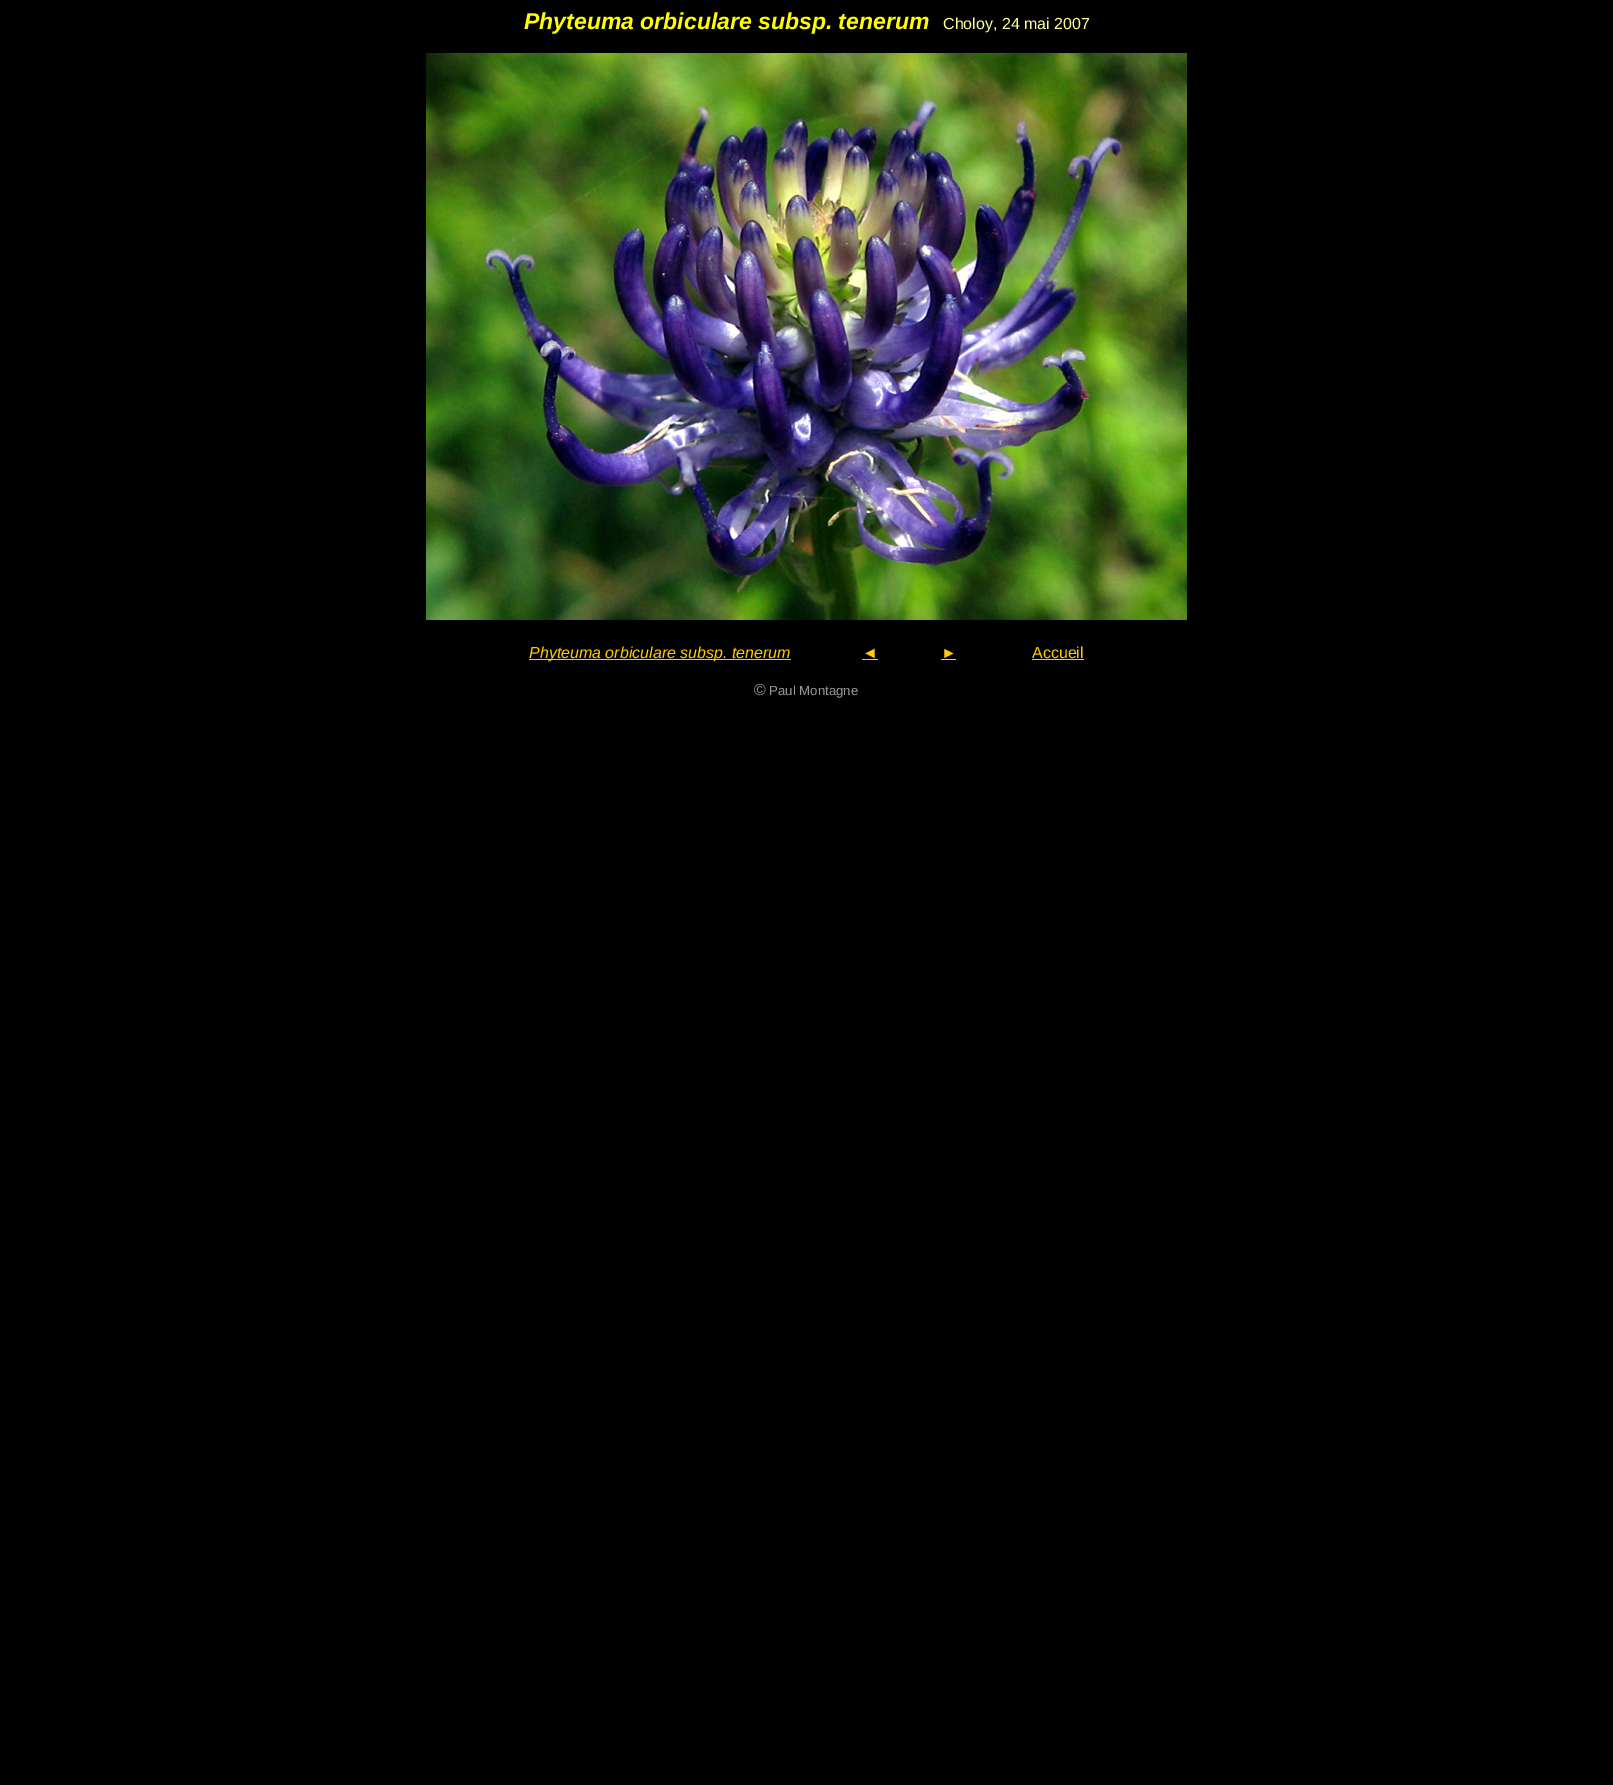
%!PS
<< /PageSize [1613 1785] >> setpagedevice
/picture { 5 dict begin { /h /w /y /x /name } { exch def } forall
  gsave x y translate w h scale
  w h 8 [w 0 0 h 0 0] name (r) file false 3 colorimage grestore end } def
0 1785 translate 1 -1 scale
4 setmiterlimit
0 setgray
0 0 1613 1785 rectfill
/LiberationSans-BoldItalic [23 0 0 -23 0 0] selectfont
1 1 0 setrgbcolor
524 29 moveto (Phyteuma orbiculare subsp. tenerum) show
/LiberationSans-Regular [16 0 0 -16 0 0] selectfont
1 1 0.6 setrgbcolor
943 29 moveto (Choloy, 24 mai 2007) show
(img1.rgb) 426 53 761 567 picture
1 0.8 0 setrgbcolor
529 659 262 1 rectfill
/LiberationSans-Italic [16 0 0 -16 0 0] selectfont
529 658 moveto (Phyteuma orbiculare subsp. tenerum) show
/LiberationSans-Regular [16 0 0 -16 0 0] selectfont
862 658 moveto (◄) show
862 659 16 1 rectfill
941 658 moveto (►) show
941 659 15 1 rectfill
1032 658 moveto (Accueil) show
1032 659 52 1 rectfill
0.6 setgray
754 695 moveto (©) show
/LiberationSans-Regular [13.25 0 0 -13.25 0 0] selectfont
769 695 moveto (Paul Montagne) show
showpage
